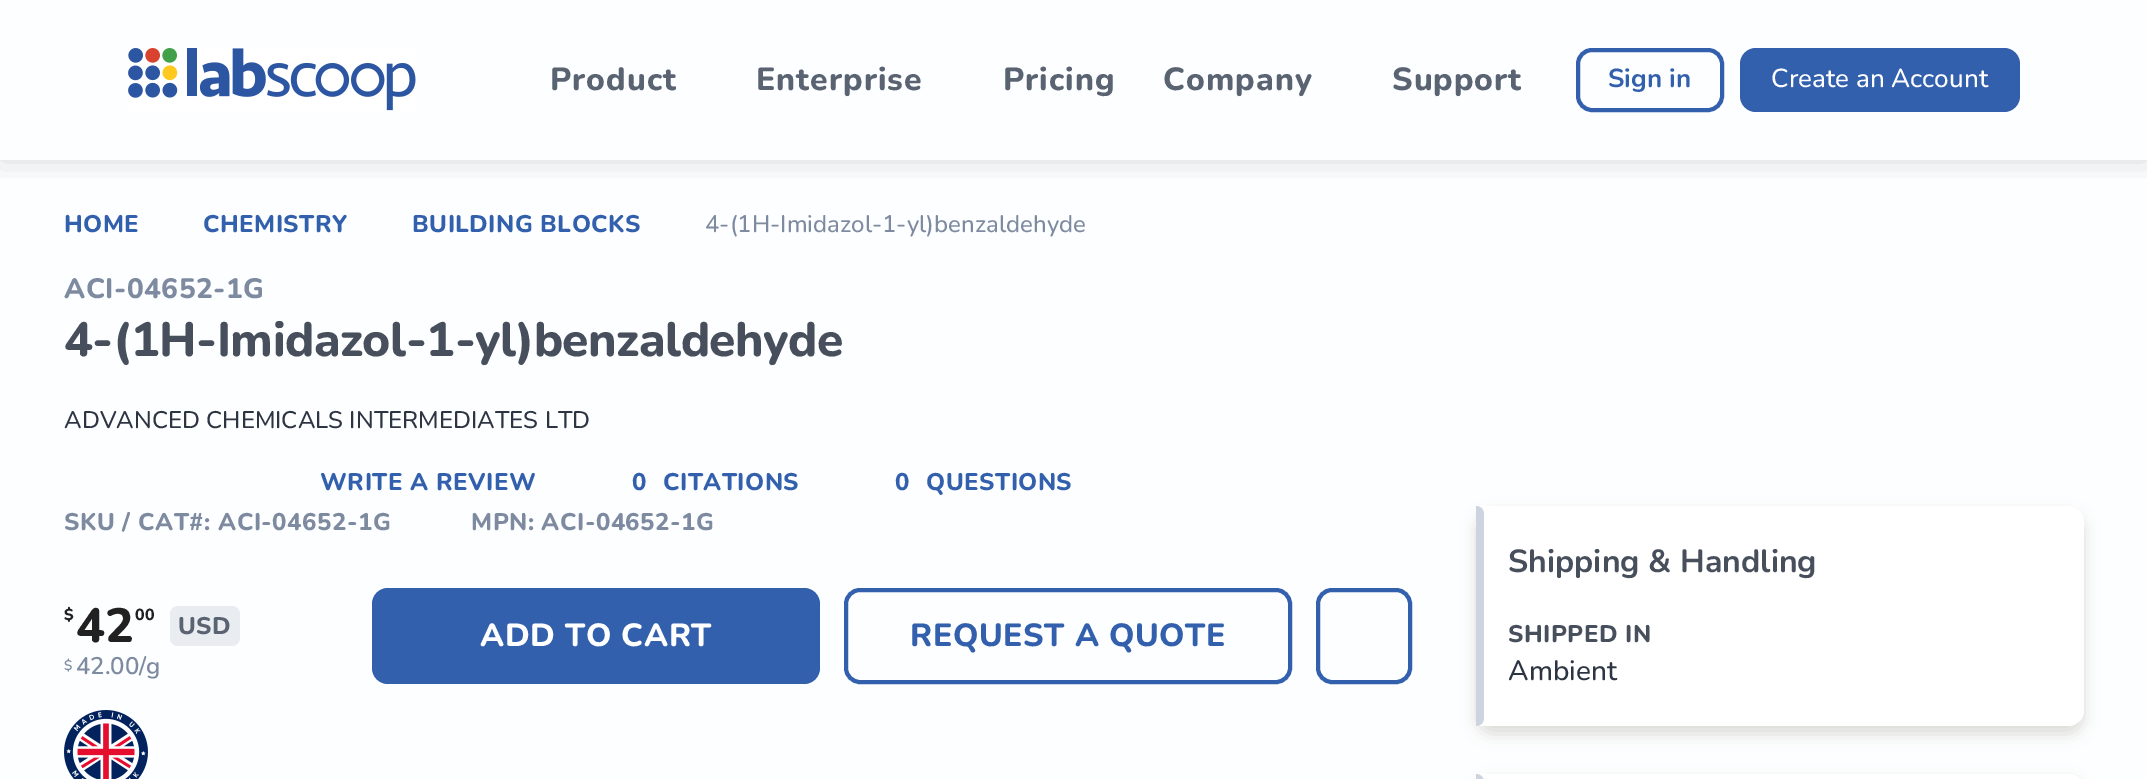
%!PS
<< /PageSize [2147 779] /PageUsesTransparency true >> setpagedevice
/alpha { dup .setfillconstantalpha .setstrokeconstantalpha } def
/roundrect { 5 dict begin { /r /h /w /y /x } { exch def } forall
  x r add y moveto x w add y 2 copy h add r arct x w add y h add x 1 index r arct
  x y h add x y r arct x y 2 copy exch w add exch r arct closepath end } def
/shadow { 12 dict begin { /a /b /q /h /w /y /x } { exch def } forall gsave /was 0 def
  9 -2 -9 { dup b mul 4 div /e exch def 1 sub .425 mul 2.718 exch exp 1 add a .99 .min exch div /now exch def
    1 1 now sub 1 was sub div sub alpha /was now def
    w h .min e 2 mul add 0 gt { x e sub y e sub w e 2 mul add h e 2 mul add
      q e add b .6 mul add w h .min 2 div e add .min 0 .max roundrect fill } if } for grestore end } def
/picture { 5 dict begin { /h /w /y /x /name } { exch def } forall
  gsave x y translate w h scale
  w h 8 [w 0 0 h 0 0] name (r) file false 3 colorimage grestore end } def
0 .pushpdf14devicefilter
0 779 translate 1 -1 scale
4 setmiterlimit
0.992 0.996 1 setrgbcolor
0 0 2147 779 rectfill
gsave
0 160 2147 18 rectclip
0.063 setgray
0 0 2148 160 0 16 0.16 shadow
grestore
(img1.rgb) 128 48 288 63 picture
/Nunito-ExtraBold [32 0 0 -32 0 0] selectfont
0.353 0.388 0.447 setrgbcolor
550 90 moveto 1 0 (Product) ashow
756 90 moveto 1 0 (Enterprise) ashow
1003 90 moveto 1 0 (Pricing) ashow
1163 90 moveto 1 0 (Company) ashow
1392 90 moveto 1 0 (Support) ashow
0.2 0.376 0.678 setrgbcolor
4 setlinewidth
1578 50 144 60 14 roundrect stroke
/Nunito-Bold [26 0 0 -26 0 0] selectfont
1608 87 moveto (Sign in) show
1740 48 280 64 16 roundrect fill
/Nunito-Medium [26 0 0 -26 0 0] selectfont
1 setgray
1771 87 moveto (Create an Account) show
/Nunito-ExtraBold [24 0 0 -24 0 0] selectfont
0.2 0.376 0.678 setrgbcolor
64 232 moveto 0.5 0 (HOME) ashow
203 232 moveto 0.5 0 (CHEMISTRY) ashow
412 232 moveto 0.5 0 (BUILDING BLOCKS) ashow
/Nunito-Medium [24 0 0 -24 0 0] selectfont
0.494 0.541 0.627 setrgbcolor
705 232 moveto (4-\(1H-Imidazol-1-yl\)benzaldehyde) show
/Nunito-ExtraBold [28 0 0 -28 0 0] selectfont
64 298 moveto 0.5 0 (ACI-04652-1G) ashow
/Nunito-ExtraBold [48 0 0 -48 0 0] selectfont
0.278 0.31 0.361 setrgbcolor
64 356 moveto -0.5 0 (4-\(1H-Imidazol-1-yl\)benzaldehyde) ashow
/Nunito-Medium [24 0 0 -24 0 0] selectfont
0.176 0.208 0.263 setrgbcolor
64 428 moveto (ADVANCED CHEMICALS INTERMEDIATES LTD) show
/Nunito-ExtraBold [24 0 0 -24 0 0] selectfont
0.2 0.376 0.678 setrgbcolor
320 490 moveto 0.5 0 (WRITE A REVIEW) ashow
632 490 moveto 0.5 0 (0) ashow
663 490 moveto 0.5 0 (CITATIONS) ashow
895 490 moveto 0.5 0 (0) ashow
926 490 moveto 0.5 0 (QUESTIONS) ashow
0.494 0.541 0.627 setrgbcolor
64 530 moveto 0.5 0 (SKU / CAT#: ACI-04652-1G) ashow
471 530 moveto 0.5 0 (MPN: ACI-04652-1G) ashow
/Nunito-ExtraBold [16 0 0 -16 0 0] selectfont
0.129 setgray
64 620 moveto ($) show
/Nunito-ExtraBold [48 0 0 -48 0 0] selectfont
76 642 moveto (42) show
/Nunito-ExtraBold [16 0 0 -16 0 0] selectfont
135 620 moveto (00) show
0.914 0.925 0.945 setrgbcolor
170 606 70 40 8 roundrect fill
/Nunito-ExtraBold [24 0 0 -24 0 0] selectfont
0.353 0.388 0.447 setrgbcolor
178 634 moveto 0.5 0 (USD) ashow
/Nunito-SemiBold [14 0 0 -14 0 0] selectfont
0.494 0.541 0.627 setrgbcolor
64 670 moveto ($) show
/Nunito-SemiBold [24 0 0 -24 0 0] selectfont
76 674 moveto (42.00/g) show
0.2 0.376 0.678 setrgbcolor
372 588 448 96 16 roundrect fill
/Nunito-ExtraBold [32 0 0 -32 0 0] selectfont
1 setgray
480 646 moveto 0.6 0 (ADD TO CART) ashow
0.2 0.376 0.678 setrgbcolor
846 590 444 92 14 roundrect stroke
910 646 moveto 0.6 0 (REQUEST A QUOTE) ashow
1318 590 92 92 14 roundrect stroke
(img2.rgb) 64 710 84 69 picture
0.251 0.243 0.161 setrgbcolor
1476 514 608 220 16 8 0.18 shadow
1 setgray
newpath 1476 506 moveto 2068 506 lineto 2077 506 2084 513 2084 522 curveto 2084 710 lineto 2084 719 2077 726 2068 726 curveto 1476 726 lineto closepath fill
0.808 0.831 0.875 setrgbcolor
newpath 1476 506 moveto 1480.5 506 1484 509.5 1484 514 curveto 1484 718 lineto 1484 722.5 1480.5 726 1476 726 curveto closepath fill
/Nunito-Bold [32 0 0 -32 0 0] selectfont
0.278 0.31 0.361 setrgbcolor
1508 572 moveto (Shipping & Handling) show
/Nunito-ExtraBold [24 0 0 -24 0 0] selectfont
1508 642 moveto 0.5 0 (SHIPPED IN) ashow
/Nunito-Medium [28 0 0 -28 0 0] selectfont
0.176 0.208 0.263 setrgbcolor
1508 680 moveto (Ambient) show
0.251 0.243 0.161 setrgbcolor
1476 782 608 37 16 8 0.18 shadow
1 setgray
newpath 1476 774 moveto 2068 774 lineto 2077 774 2084 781 2084 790 curveto 2084 779 lineto 2084 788 2077 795 2068 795 curveto 1476 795 lineto closepath fill
0.808 0.831 0.875 setrgbcolor
newpath 1476 774 moveto 1480.5 774 1484 777.5 1484 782 curveto 1484 779 lineto 1484 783.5 1480.5 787 1476 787 curveto closepath fill
.poppdf14devicefilter showpage
